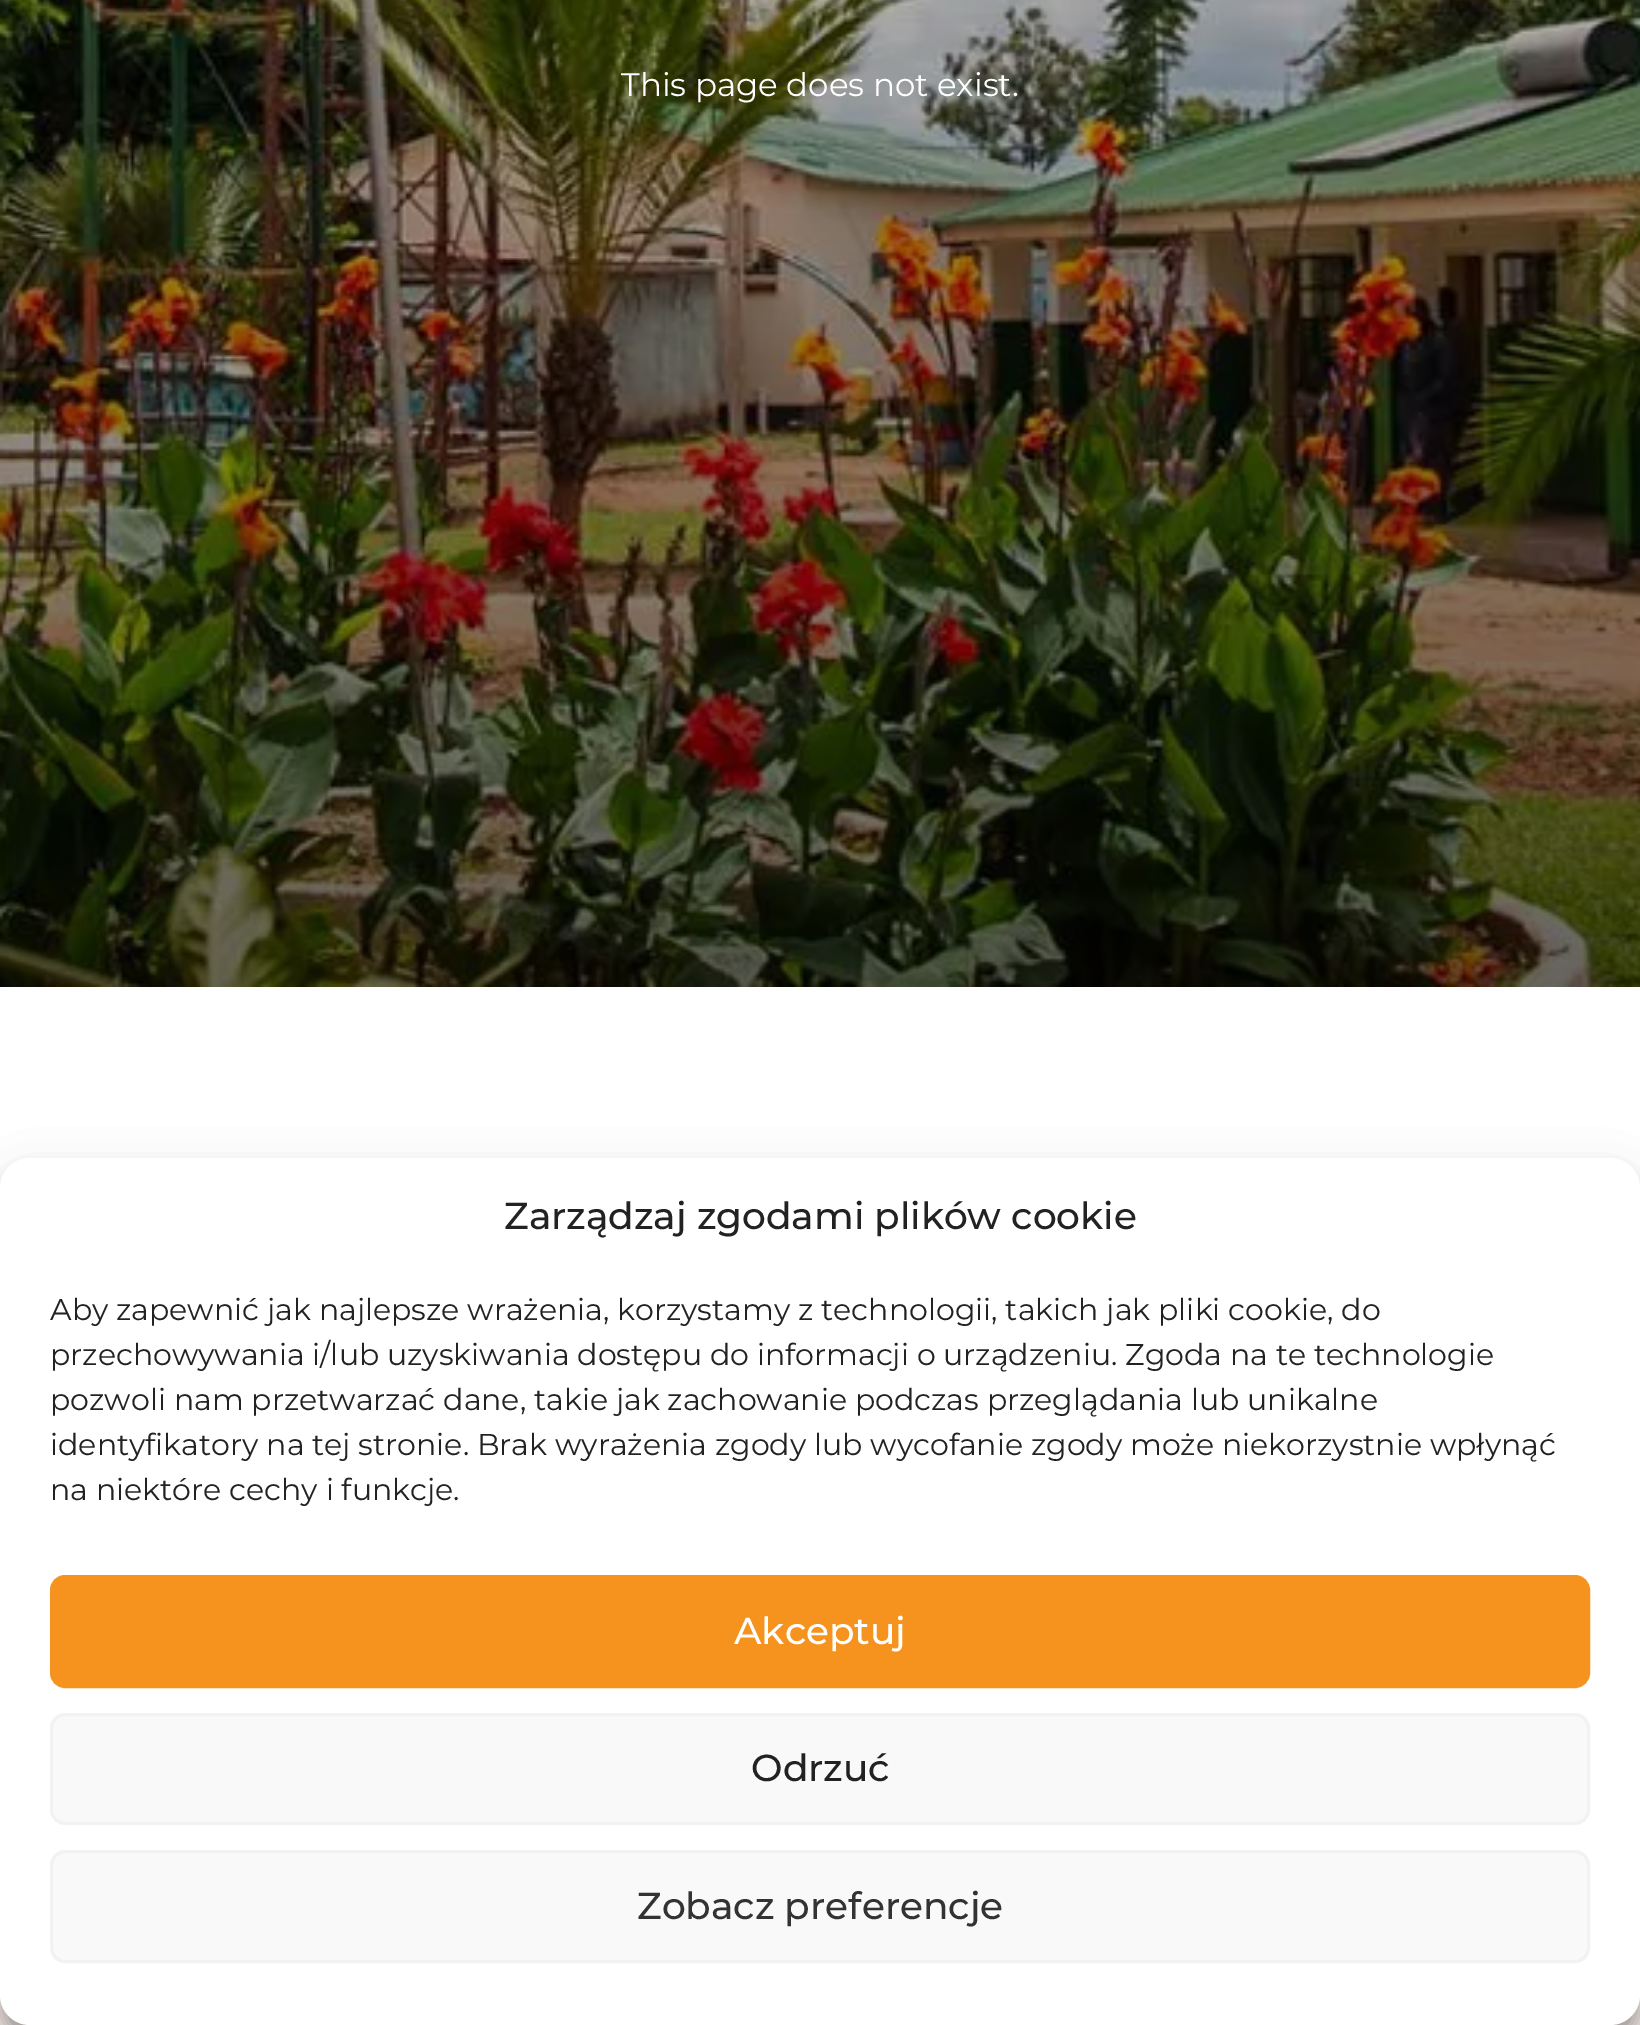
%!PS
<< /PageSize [1640 2025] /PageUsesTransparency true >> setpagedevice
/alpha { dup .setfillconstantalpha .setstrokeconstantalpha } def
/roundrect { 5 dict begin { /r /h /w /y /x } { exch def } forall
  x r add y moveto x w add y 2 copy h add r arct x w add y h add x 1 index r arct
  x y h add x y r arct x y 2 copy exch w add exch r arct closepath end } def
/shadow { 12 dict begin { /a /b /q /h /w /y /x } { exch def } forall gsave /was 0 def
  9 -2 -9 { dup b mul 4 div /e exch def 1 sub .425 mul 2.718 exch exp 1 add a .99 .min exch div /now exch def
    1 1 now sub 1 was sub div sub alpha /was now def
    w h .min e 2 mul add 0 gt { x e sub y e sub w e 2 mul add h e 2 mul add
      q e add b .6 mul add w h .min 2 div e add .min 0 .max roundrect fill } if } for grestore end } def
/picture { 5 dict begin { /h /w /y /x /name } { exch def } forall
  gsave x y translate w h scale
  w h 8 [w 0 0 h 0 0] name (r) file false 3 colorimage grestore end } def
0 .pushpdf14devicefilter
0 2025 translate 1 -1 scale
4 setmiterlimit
1 setgray
0 0 1640 2025 rectfill
(img1.rgb) 0 0 1640 987 picture
/Montserrat-Regular [32.5 0 0 -32.5 0 0] selectfont
621 96 moveto (This page does not exist.) show
1 0.961 0.941 setrgbcolor
0 1995 1640 30 rectfill
0 setgray
0 1173 1640 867 30 7.5 0.23 shadow
0 1183 1640 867 30 25 0.19 shadow
1 setgray
0 1158 1640 867 30 roundrect fill
/Montserrat-Medium [37.5 0 0 -37.5 0 0] selectfont
0.133 setgray
504 1229 moveto (Zarządzaj zgodami plików cookie) show
/Montserrat-Regular [30 0 0 -30 0 0] selectfont
50 1320 moveto (Aby zapewnić jak najlepsze wrażenia, korzystamy z technologii, takich jak pliki cookie, do) show
50 1365 moveto (przechowywania i/lub uzyskiwania dostępu do informacji o urządzeniu. Zgoda na te technologie) show
50 1410 moveto (pozwoli nam przetwarzać dane, takie jak zachowanie podczas przeglądania lub unikalne) show
50 1455 moveto (identyfikatory na tej stronie. Brak wyrażenia zgody lub wycofanie zgody może niekorzystnie wpłynąć) show
50 1500 moveto (na niektóre cechy i funkcje.) show
0.965 0.573 0.118 setrgbcolor
51.5 1576.5 1537 110 13.5 roundrect gsave fill grestore
3 setlinewidth
stroke
/Montserrat-Medium [37.5 0 0 -37.5 0 0] selectfont
1 setgray
734 1644 moveto (Akceptuj) show
0.976 setgray
51.5 1714.5 1537 109 13.5 roundrect gsave fill grestore
0.949 setgray
stroke
0.133 setgray
751 1781 moveto (Odrzuć) show
0.976 setgray
51.5 1851.5 1537 110 13.5 roundrect gsave fill grestore
0.949 setgray
stroke
0.2 setgray
637 1919 moveto (Zobacz preferencje) show
.poppdf14devicefilter showpage
